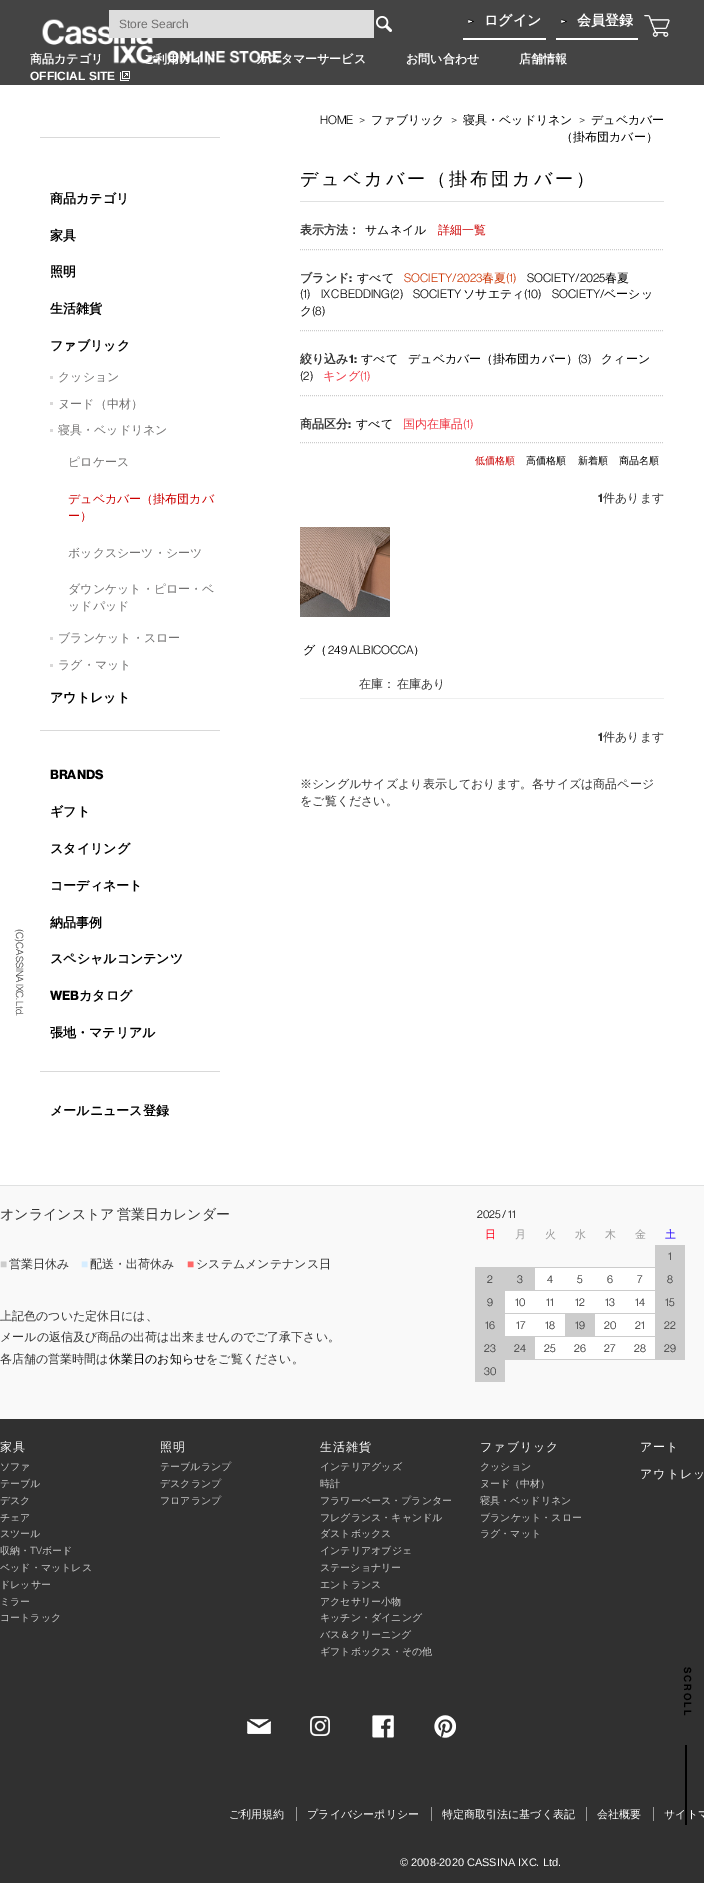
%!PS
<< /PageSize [704 1883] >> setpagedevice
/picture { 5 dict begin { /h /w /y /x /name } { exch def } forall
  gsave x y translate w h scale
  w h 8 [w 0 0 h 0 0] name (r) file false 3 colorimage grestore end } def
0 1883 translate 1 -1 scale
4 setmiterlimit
1 setgray
0 0 704 1883 rectfill
0.267 setgray
0 0 704 85 rectfill
(img1.rgb) 42 19 240 45 picture
1 setgray
463 38 83 2 rectfill
(img2.rgb) 468 19 6 5 picture
/WenQuanYiZenHei-Bold [14 0 0 -14 0 0] selectfont
484 25 moveto (ログイン) show
556 38 82 2 rectfill
(img3.rgb) 561 19 6 5 picture
577 25 moveto (会員登録) show
(img4.rgb) 644 15 26 22 picture
0.867 setgray
109 10 265 28 rectfill
/LiberationSans-Regular [12 0 0 -12 0 0] selectfont
0.447 0.443 0.443 setrgbcolor
119 28 moveto (Store Search) show
(img5.rgb) 376 16 16 16 picture
/WenQuanYiZenHei-Bold [12 0 0 -12 0 0] selectfont
1 setgray
30 63 moveto (商品カテゴリ) show
143 63 moveto (ご利用ガイド) show
256 63 moveto (カスタマーサービス) show
406 63 moveto (お問い合わせ) show
519 63 moveto (店舗情報) show
(img6.rgb) 120 71 10 10 picture
/LiberationSans-Bold [12 0 0 -12 0 0] selectfont
30 80 moveto (OFFICIAL SITE) show
/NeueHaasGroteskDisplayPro-Regular [10 0 0 -10 0 0] selectfont
0.2 setgray
gsave 16 929 translate 90 rotate 0 0 moveto -0.5 0 32 (\(C\) CASSINA IXC. Ltd.) widthshow grestore
0.851 setgray
40 137 180 1 rectfill
40 730 180 1 rectfill
/WenQuanYiZenHei-Bold [13 0 0 -13 0 0] selectfont
0 setgray
50 203 moveto (商品カテゴリ) show
50 240 moveto (家具) show
50 276 moveto (照明) show
50 313 moveto (生活雑貨) show
50 350 moveto (ファブリック) show
0.851 0.847 0.847 setrgbcolor
50 376 3 3 rectfill
/WenQuanYiZenHei-Medium [12 0 0 -12 0 0] selectfont
0.447 0.443 0.443 setrgbcolor
58 381 moveto (クッション) show
0.851 0.847 0.847 setrgbcolor
50 402 3 3 rectfill
0.447 0.443 0.443 setrgbcolor
58 408 moveto (ヌード（中材）) show
0.851 0.847 0.847 setrgbcolor
50 429 3 3 rectfill
0.447 0.443 0.443 setrgbcolor
58 434 moveto (寝具・ベッドリネン) show
68 466 moveto (ピロケース) show
0.8 0 0 setrgbcolor
68 503 moveto (デュベカバー（掛布団カバ) show
68 520 moveto (ー）) show
0.447 0.443 0.443 setrgbcolor
68 557 moveto (ボックスシーツ・シーツ) show
68 593 moveto (ダウンケット・ピロー・ベ) show
68 610 moveto (ッドパッド) show
0.851 0.847 0.847 setrgbcolor
50 637 3 3 rectfill
0.447 0.443 0.443 setrgbcolor
58 642 moveto (ブランケット・スロー) show
0.851 0.847 0.847 setrgbcolor
50 664 3 3 rectfill
0.447 0.443 0.443 setrgbcolor
58 669 moveto (ラグ・マット) show
/WenQuanYiZenHei-Bold [13 0 0 -13 0 0] selectfont
0 setgray
50 702 moveto (アウトレット) show
/NeueHaasGroteskDisplayPro-Bold [13 0 0 -13 0 0] selectfont
50 779 moveto (BRANDS) show
/WenQuanYiZenHei-Bold [13 0 0 -13 0 0] selectfont
50 816 moveto (ギフト) show
50 853 moveto (スタイリング) show
50 890 moveto (コーディネート) show
50 927 moveto (納品事例) show
50 963 moveto (スペシャルコンテンツ) show
/NeueHaasGroteskDisplayPro-Bold [13 0 0 -13 0 0] selectfont
50 1000 moveto (WEB) show
/WenQuanYiZenHei-Bold [13 0 0 -13 0 0] selectfont
79 1000 moveto (カタログ) show
50 1037 moveto (張地・マテリアル) show
0.851 setgray
40 1071 180 1 rectfill
0 setgray
50 1115 moveto (メールニュース登録) show
/NeueHaasGroteskDisplayPro-Regular [12 0 0 -12 0 0] selectfont
320 124 moveto (HOME) show
0.2 setgray
359 124 moveto (>) show
/WenQuanYiZenHei-Medium [12 0 0 -12 0 0] selectfont
0 setgray
371 124 moveto (ファブリック) show
/NeueHaasGroteskDisplayPro-Regular [12 0 0 -12 0 0] selectfont
0.2 setgray
451 124 moveto (>) show
/WenQuanYiZenHei-Medium [12 0 0 -12 0 0] selectfont
0 setgray
463 124 moveto (寝具・ベッドリネン) show
/NeueHaasGroteskDisplayPro-Regular [12 0 0 -12 0 0] selectfont
0.2 setgray
579 124 moveto (>) show
/WenQuanYiZenHei-Medium [12 0 0 -12 0 0] selectfont
0 setgray
591 124 moveto (デュベカバー) show
561 141 moveto (（掛布団カバー）) show
0.878 0.882 0.882 setrgbcolor
300 201 364 1 rectfill
/WenQuanYiZenHei-Medium [18 0 0 -18 0 0] selectfont
0 setgray
300 185 moveto 3 0 (デュベカバー（掛布団カバー）) ashow
0.8 setgray
[1 1] 0 setdash
newpath 300 249.5 moveto 664 249.5 lineto stroke
/WenQuanYiZenHei-Bold [12 0 0 -12 0 0] selectfont
0.2 setgray
300 234 moveto (表示方法：) show
/WenQuanYiZenHei-Medium [12 0 0 -12 0 0] selectfont
0 setgray
365 234 moveto (サムネイル) show
0.8 0 0 setrgbcolor
438 234 moveto (詳細一覧) show
0.8 setgray
newpath 300 330.5 moveto 664 330.5 lineto stroke
0 setgray
357 282 moveto (すべて) show
/NeueHaasGroteskDisplayPro-Regular [12 0 0 -12 0 0] selectfont
0.8 0.2 0 setrgbcolor
404 282 moveto (SOCIETY/2023) show
/WenQuanYiZenHei-Medium [12 0 0 -12 0 0] selectfont
482 282 moveto (春夏) show
/NeueHaasGroteskDisplayPro-Regular [12 0 0 -12 0 0] selectfont
506 282 moveto (\(1\)) show
0 setgray
527 282 moveto (SOCIETY/2025) show
/WenQuanYiZenHei-Medium [12 0 0 -12 0 0] selectfont
605 282 moveto (春夏) show
/NeueHaasGroteskDisplayPro-Regular [12 0 0 -12 0 0] selectfont
300 298 moveto (\(1\)) show
321 298 moveto (IXC BEDDING\(2\)) show
413 298 moveto (SOCIETY) show
/WenQuanYiZenHei-Medium [12 0 0 -12 0 0] selectfont
463 298 moveto (ソサエティ) show
/NeueHaasGroteskDisplayPro-Regular [12 0 0 -12 0 0] selectfont
524 298 moveto (\(10\)) show
552 298 moveto (SOCIETY/) show
/WenQuanYiZenHei-Medium [12 0 0 -12 0 0] selectfont
604 298 moveto (ベーシッ) show
300 315 moveto (ク) show
/NeueHaasGroteskDisplayPro-Regular [12 0 0 -12 0 0] selectfont
312 315 moveto (\(8\)) show
/WenQuanYiZenHei-Bold [12 0 0 -12 0 0] selectfont
0.2 setgray
300 282 moveto (ブランド) show
/NeueHaasGroteskDisplayPro-Bold [12 0 0 -12 0 0] selectfont
349 282 moveto (:) show
0.8 setgray
newpath 300 395.5 moveto 664 395.5 lineto stroke
/WenQuanYiZenHei-Bold [12 0 0 -12 0 0] selectfont
0.2 setgray
300 363 moveto (絞り込み) show
/NeueHaasGroteskDisplayPro-Bold [12 0 0 -12 0 0] selectfont
349 363 moveto (1:) show
/WenQuanYiZenHei-Medium [12 0 0 -12 0 0] selectfont
0 setgray
361 363 moveto (すべて) show
408 363 moveto (デュベカバー（掛布団カバー）) show
/NeueHaasGroteskDisplayPro-Regular [12 0 0 -12 0 0] selectfont
578 363 moveto (\(3\)) show
/WenQuanYiZenHei-Medium [12 0 0 -12 0 0] selectfont
601 363 moveto (クィーン) show
/NeueHaasGroteskDisplayPro-Regular [12 0 0 -12 0 0] selectfont
300 380 moveto (\(2\)) show
/WenQuanYiZenHei-Medium [12 0 0 -12 0 0] selectfont
0.937 0.2 0.251 setrgbcolor
323 380 moveto (キング) show
/NeueHaasGroteskDisplayPro-Regular [12 0 0 -12 0 0] selectfont
360 380 moveto (\(1\)) show
0.8 setgray
newpath 300 442.5 moveto 664 442.5 lineto stroke
/WenQuanYiZenHei-Bold [12 0 0 -12 0 0] selectfont
0.2 setgray
300 428 moveto (商品区分) show
/NeueHaasGroteskDisplayPro-Bold [12 0 0 -12 0 0] selectfont
348 428 moveto (:) show
/WenQuanYiZenHei-Medium [12 0 0 -12 0 0] selectfont
0 setgray
356 428 moveto (すべて) show
0.937 0.2 0.251 setrgbcolor
403 428 moveto (国内在庫品) show
/NeueHaasGroteskDisplayPro-Regular [12 0 0 -12 0 0] selectfont
463 428 moveto (\(1\)) show
/WenQuanYiZenHei-Medium [10 0 0 -10 0 0] selectfont
0.8 0 0 setrgbcolor
475 464 moveto (低価格順) show
0 setgray
526 464 moveto (高価格順) show
578 464 moveto (新着順) show
619 464 moveto (商品名順) show
/NeueHaasGroteskDisplayPro-Bold [12 0 0 -12 0 0] selectfont
0.2 setgray
598 502 moveto (1) show
/WenQuanYiZenHei-Medium [12 0 0 -12 0 0] selectfont
603 502 moveto (件あります) show
0.933 0.937 0.937 setrgbcolor
300 698 364 1 rectfill
(img7.rgb) 300 527 90 90 picture
0 setgray
303 654 moveto (グ（) show
/NeueHaasGroteskDisplayPro-Regular [12 0 0 -12 0 0] selectfont
328 654 moveto (249 ALBICOCCA) show
/WenQuanYiZenHei-Medium [12 0 0 -12 0 0] selectfont
413 654 moveto (）) show
0.2 setgray
359 688 moveto (在庫：) show
397 688 moveto (在庫あり) show
/NeueHaasGroteskDisplayPro-Bold [12 0 0 -12 0 0] selectfont
598 741 moveto (1) show
/WenQuanYiZenHei-Medium [12 0 0 -12 0 0] selectfont
603 741 moveto (件あります) show
300 788 moveto (※シングルサイズより表示しております。各サイズは商品ページ) show
300 805 moveto (をご覧ください。) show
0.188 setgray
0 1419 704 464 rectfill
0.976 setgray
0 1186 704 233 rectfill
0.878 0.882 0.882 setrgbcolor
0 1185 704 1 rectfill
/WenQuanYiZenHei-Medium [14 0 0 -14 0 0] selectfont
0.2 setgray
0 1219 moveto -2 0 32 (オンラインストア 営業日カレンダー) widthshow
/LiberationSans-Regular [12 0 0 -12 0 0] selectfont
0.8 setgray
0 1268 moveto (■) show
/WenQuanYiZenHei-Medium [12 0 0 -12 0 0] selectfont
0.2 setgray
9 1268 moveto (営業日休み) show
/LiberationSans-Regular [12 0 0 -12 0 0] selectfont
0.839 0.929 1 setrgbcolor
81 1268 moveto (■) show
/WenQuanYiZenHei-Medium [12 0 0 -12 0 0] selectfont
0.2 setgray
90 1268 moveto (配送・出荷休み) show
/LiberationSans-Regular [12 0 0 -12 0 0] selectfont
1 0.404 0.404 setrgbcolor
187 1268 moveto (■) show
/WenQuanYiZenHei-Medium [12 0 0 -12 0 0] selectfont
0.2 setgray
196 1268 moveto (システムメンテナンス日) show
0 1320 moveto (上記色のついた定休日には、) show
0 1341 moveto (メールの返信及び商品の出荷は出来ませんのでご了承下さい。) show
0 1363 moveto (各店舗の営業時間は) show
0 setgray
109 1363 moveto (休業日のお知らせ) show
0.2 setgray
206 1363 moveto (をご覧ください。) show
/NeueHaasGroteskDisplayPro-Regular [11 0 0 -11 0 0] selectfont
0 setgray
477 1218 moveto (2025 / 11) show
/WenQuanYiZenHei-Medium [11 0 0 -11 0 0] selectfont
1 0 0.094 setrgbcolor
485 1238 moveto (日) show
0.6 setgray
515 1238 moveto (月) show
545 1238 moveto (火) show
575 1238 moveto (水) show
605 1238 moveto (木) show
635 1238 moveto (金) show
0.118 0 1 setrgbcolor
665 1238 moveto (土) show
0.8 setgray
655 1245 30 22 rectfill
/NeueHaasGroteskDisplayPro-Regular [11 0 0 -11 0 0] selectfont
0.2 setgray
668 1260 moveto (1) show
0.8 setgray
475 1267 210 1 rectfill
475 1268 60 22 rectfill
0.2 setgray
487 1283 moveto (2) show
517 1283 moveto (3) show
1 setgray
535 1268 120 22 rectfill
0.137 setgray
547 1283 moveto (4) show
577 1283 moveto (5) show
607 1283 moveto (6) show
637 1283 moveto (7) show
0.8 setgray
655 1268 30 22 rectfill
0.2 setgray
667 1283 moveto (8) show
0.8 setgray
475 1290 210 1 rectfill
475 1291 30 22 rectfill
0.2 setgray
487 1306 moveto (9) show
1 setgray
505 1291 150 22 rectfill
0.137 setgray
515 1306 moveto (10) show
546 1306 moveto (11) show
575 1306 moveto (12) show
605 1306 moveto (13) show
635 1306 moveto (14) show
0.8 setgray
655 1291 30 22 rectfill
0.2 setgray
665 1306 moveto (15) show
0.8 setgray
475 1313 210 1 rectfill
475 1314 30 22 rectfill
0.2 setgray
485 1329 moveto (16) show
1 setgray
505 1314 60 22 rectfill
0.137 setgray
516 1329 moveto (17) show
545 1329 moveto (18) show
0.8 setgray
565 1314 30 22 rectfill
0.2 setgray
575 1329 moveto (19) show
1 setgray
595 1314 60 22 rectfill
0.137 setgray
604 1329 moveto (20) show
635 1329 moveto (21) show
0.8 setgray
655 1314 30 22 rectfill
0.2 setgray
664 1329 moveto (22) show
0.8 setgray
475 1336 210 1 rectfill
475 1337 60 22 rectfill
0.2 setgray
484 1352 moveto (23) show
514 1352 moveto (24) show
1 setgray
535 1337 120 22 rectfill
0.137 setgray
544 1352 moveto (25) show
574 1352 moveto (26) show
604 1352 moveto (27) show
634 1352 moveto (28) show
0.8 setgray
655 1337 30 22 rectfill
0.2 setgray
664 1352 moveto (29) show
0.8 setgray
475 1359 210 1 rectfill
475 1360 30 22 rectfill
0.2 setgray
484 1375 moveto (30) show
/WenQuanYiZenHei-Medium [12 0 0 -12 0 0] selectfont
1 setgray
0 1451 moveto 1 0 (家具) ashow
/WenQuanYiZenHei-Medium [10 0 0 -10 0 0] selectfont
0.8 setgray
0 1470 moveto (ソファ) show
0 1487 moveto (テーブル) show
0 1504 moveto (デスク) show
0 1521 moveto (チェア) show
0 1537 moveto (スツール) show
0 1554 moveto (収納・) show
/NeueHaasGroteskDisplayPro-Regular [10 0 0 -10 0 0] selectfont
30 1554 moveto (TV) show
/WenQuanYiZenHei-Medium [10 0 0 -10 0 0] selectfont
42 1554 moveto (ボード) show
0 1571 moveto (ベッド・マットレス) show
0 1588 moveto (ドレッサー) show
0 1605 moveto (ミラー) show
0 1621 moveto (コートラック) show
/WenQuanYiZenHei-Medium [12 0 0 -12 0 0] selectfont
1 setgray
160 1451 moveto 1 0 (照明) ashow
/WenQuanYiZenHei-Medium [10 0 0 -10 0 0] selectfont
0.8 setgray
160 1470 moveto (テーブルランプ) show
160 1487 moveto (デスクランプ) show
160 1504 moveto (フロアランプ) show
/WenQuanYiZenHei-Medium [12 0 0 -12 0 0] selectfont
1 setgray
320 1451 moveto 1 0 (生活雑貨) ashow
/WenQuanYiZenHei-Medium [10 0 0 -10 0 0] selectfont
0.8 setgray
320 1470 moveto (インテリアグッズ) show
320 1487 moveto (時計) show
320 1504 moveto (フラワーベース・プランター) show
320 1521 moveto (フレグランス・キャンドル) show
320 1537 moveto (ダストボックス) show
320 1554 moveto (インテリアオブジェ) show
320 1571 moveto (ステーショナリー) show
320 1588 moveto (エントランス) show
320 1605 moveto (アクセサリー小物) show
320 1621 moveto (キッチン・ダイニング) show
320 1638 moveto (バス＆クリーニング) show
320 1655 moveto (ギフトボックス・その他) show
/WenQuanYiZenHei-Medium [12 0 0 -12 0 0] selectfont
1 setgray
480 1451 moveto 1 0 (ファブリック) ashow
/WenQuanYiZenHei-Medium [10 0 0 -10 0 0] selectfont
0.8 setgray
480 1470 moveto (クッション) show
480 1487 moveto (ヌード（中材）) show
480 1504 moveto (寝具・ベッドリネン) show
480 1521 moveto (ブランケット・スロー) show
480 1537 moveto (ラグ・マット) show
/WenQuanYiZenHei-Medium [12 0 0 -12 0 0] selectfont
1 setgray
640 1451 moveto 1 0 (アート) ashow
640 1478 moveto 1 0 (アウトレッ) ashow
(img8.rgb) 247 1719 24 15 picture
(img9.rgb) 310 1716 20 20 picture
(img10.rgb) 372 1715 22 23 picture
(img11.rgb) 434 1715 22 23 picture
/WenQuanYiZenHei-Medium [11 0 0 -11 0 0] selectfont
229 1818 moveto (ご利用規約) show
307 1818 moveto (プライバシーポリシー) show
0.6 setgray
296 1807 1 14 rectfill
1 setgray
442 1818 moveto (特定商取引法に基づく表記) show
0.6 setgray
431 1807 1 14 rectfill
1 setgray
597 1818 moveto (会社概要) show
0.6 setgray
586 1807 1 14 rectfill
1 setgray
664 1818 moveto (サイトマ) show
0.6 setgray
653 1807 1 14 rectfill
/LiberationSans-Regular [11 0 0 -11 0 0] selectfont
1 setgray
400 1866 moveto (© 2008-2020 CASSINA IXC. Ltd.) show
/NeueHaasGroteskDisplayPro-Medium [10 0 0 -10 0 0] selectfont
0 setgray
gsave 684 1667 translate 90 rotate 0 0 moveto 2 0 (SCROLL) ashow grestore
685 1745 2 80 rectfill
showpage
